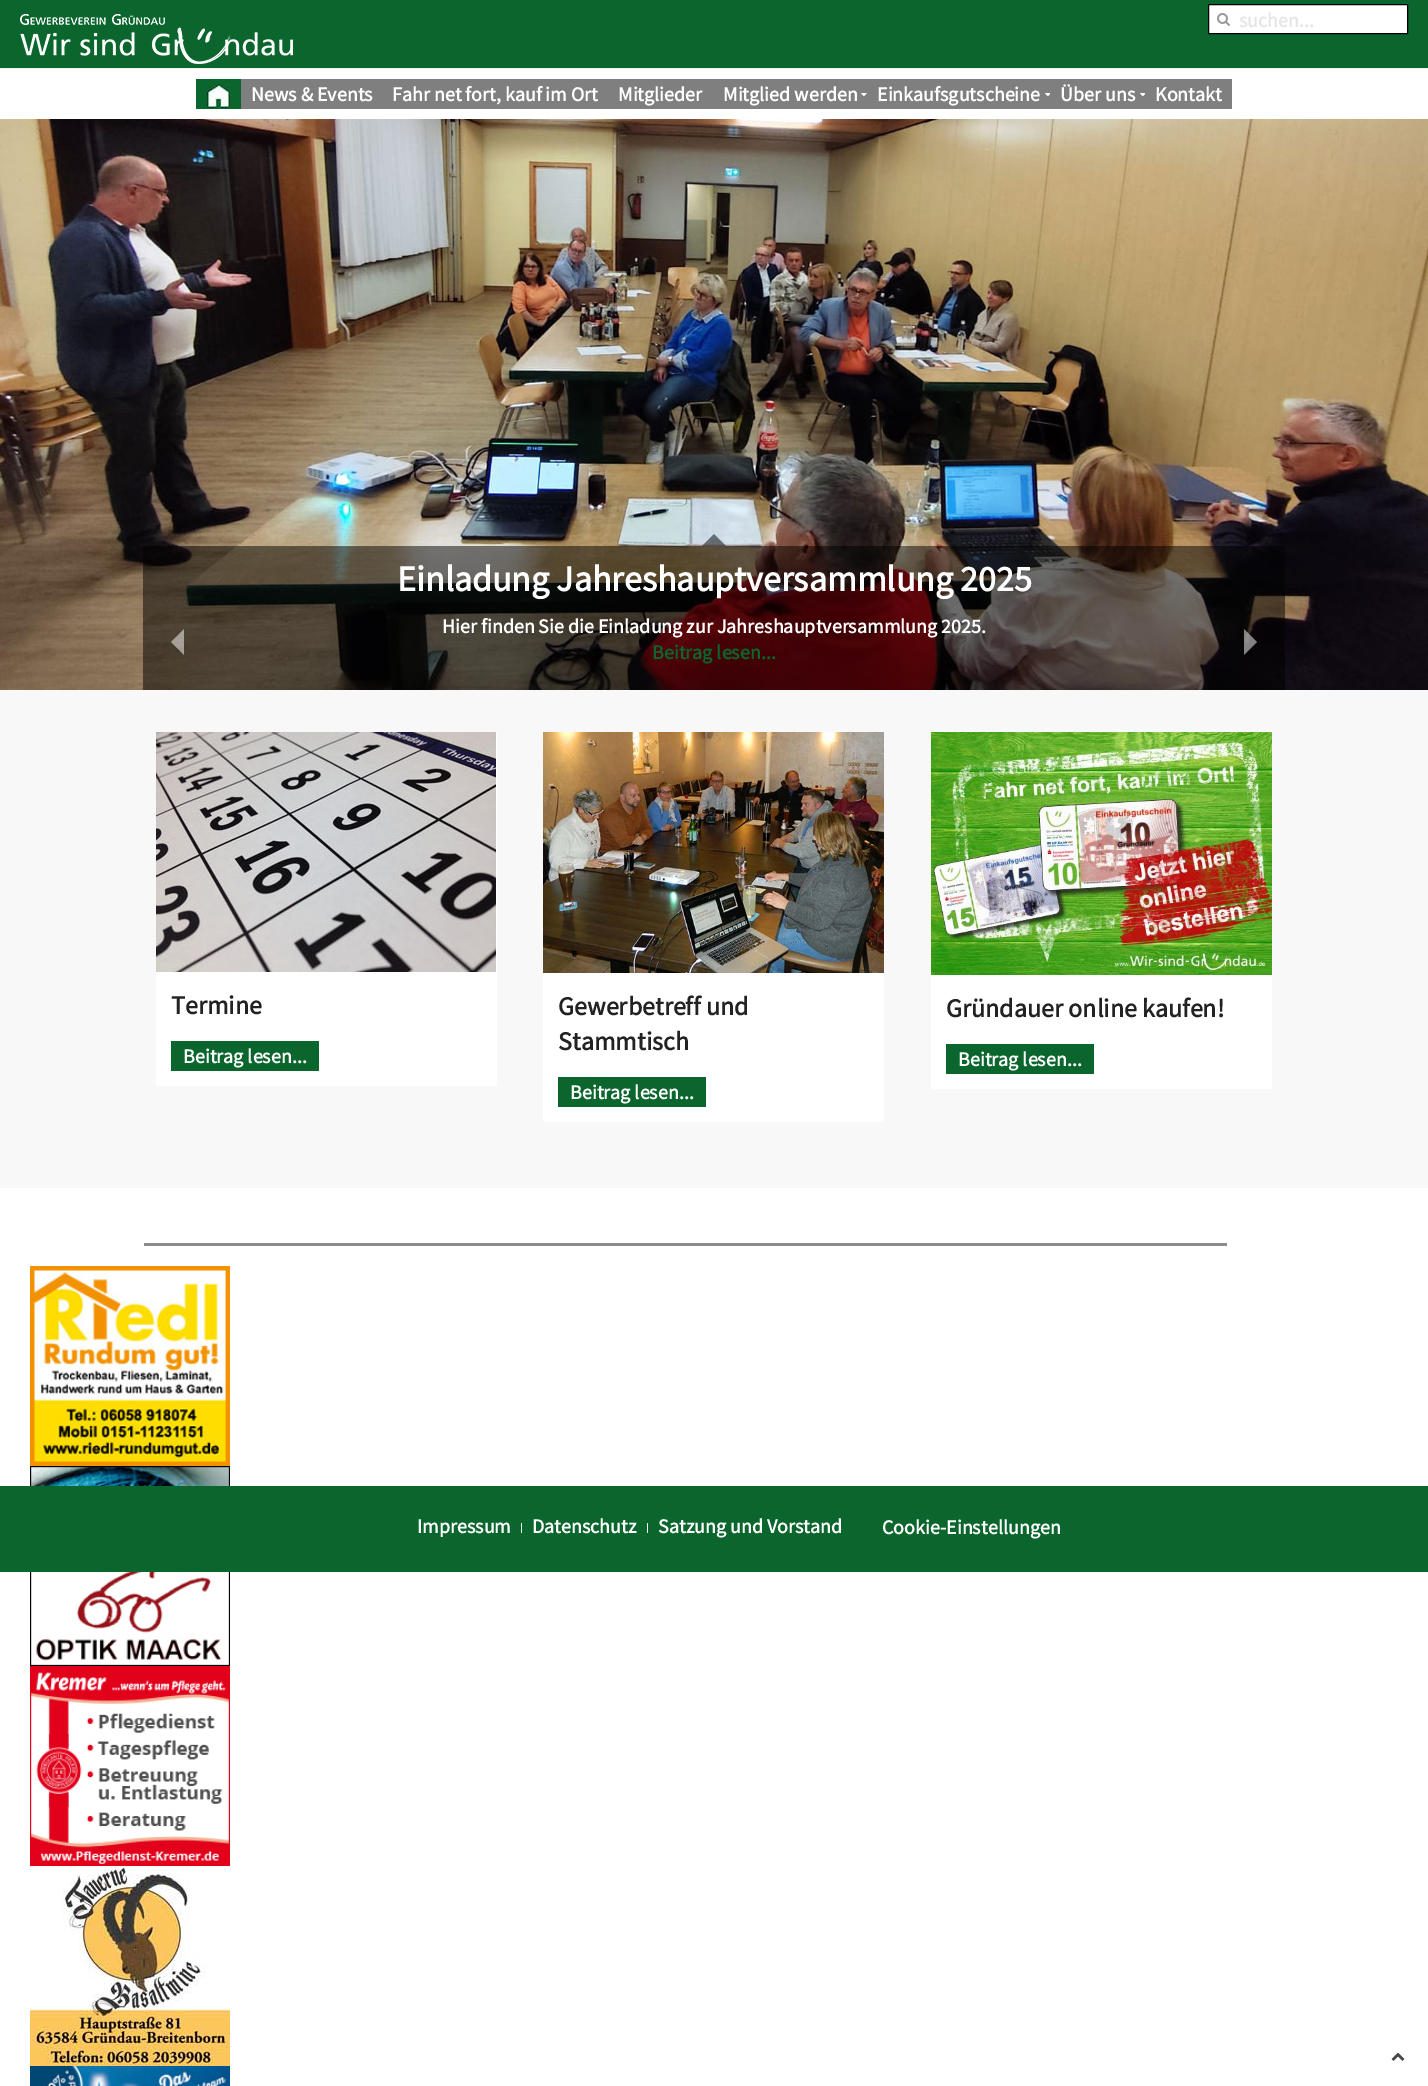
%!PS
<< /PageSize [1428 2086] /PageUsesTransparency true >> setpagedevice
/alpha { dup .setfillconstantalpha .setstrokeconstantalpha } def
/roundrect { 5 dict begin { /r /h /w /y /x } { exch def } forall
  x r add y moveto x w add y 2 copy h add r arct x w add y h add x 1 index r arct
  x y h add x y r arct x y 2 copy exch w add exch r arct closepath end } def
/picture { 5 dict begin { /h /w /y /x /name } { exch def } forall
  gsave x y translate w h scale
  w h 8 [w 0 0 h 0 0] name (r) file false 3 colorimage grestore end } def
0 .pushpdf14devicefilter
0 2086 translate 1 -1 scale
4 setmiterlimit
1 setgray
0 0 1428 2086 rectfill
0.039 0.4 0.176 setrgbcolor
0 0 1428 68 rectfill
0.949 setgray
0 68 1428 1 rectfill
(img1.rgb) 20 14 273 50 picture
1 setgray
newpath 1208.5 4.5 moveto 1407.5 4.5 lineto 1407.5 33.5 lineto 1208.5 33.5 lineto closepath gsave fill grestore
0 setgray
stroke
(img2.rgb) 1217 13 13 13 picture
/SourceSansPro-Bold [20 0 0 -20 0 0] selectfont
0.902 setgray
1239 27 moveto (suchen...) show
0.039 0.4 0.176 setrgbcolor
196 79 45 30 rectfill
(img3.rgb) 206 84 25 25 picture
0.498 setgray
241 79 991 30 rectfill
1 setgray
251 101 moveto (News & Events) show
392 101 moveto (Fahr net fort, kauf im Ort) show
618 101 moveto (Mitglieder) show
723 101 moveto (Mitglied werden) show
(img4.rgb) 861 93 6 4 picture
877 101 moveto (Einkaufsgutscheine) show
(img5.rgb) 1045 93 5 4 picture
1060 101 moveto (Über uns) show
(img5.rgb) 1140 93 5 4 picture
1155 101 moveto (Kontakt) show
(img6.rgb) 0 119 1428 571 picture
0.5 alpha
0 setgray
143 546 1142 144 rectfill
newpath 726 546 moveto 702 546 lineto 714 534 lineto closepath fill
/SourceSansPro-Bold [36 0 0 -36 0 0] selectfont
1 alpha
1 setgray
397 591 moveto (Einladung Jahreshauptversammlung 2025) show
/SourceSansPro-Bold [20 0 0 -20 0 0] selectfont
442 633 moveto (Hier finden Sie die Einladung zur Jahreshauptversammlung 2025.) show
0.039 0.4 0.176 setrgbcolor
652 659 moveto (Beitrag lesen...) show
0.5 alpha
1 setgray
newpath 184 629 moveto 184 655 lineto 171 642 lineto closepath fill
newpath 1244 655 moveto 1244 629 lineto 1257 642 lineto closepath fill
1 alpha
0.973 setgray
0 690 1428 498 rectfill
1 setgray
156 732 341 354 2 roundrect fill
(img7.rgb) 156 732 340 240 picture
/SourceSansPro-Bold [26 0 0 -26 0 0] selectfont
0.133 setgray
171 1014 moveto (Termine) show
0.039 0.4 0.176 setrgbcolor
171 1041 148 30 rectfill
/SourceSansPro-Bold [20 0 0 -20 0 0] selectfont
1 setgray
183 1063 moveto (Beitrag lesen...) show
543 732 341 390 2 roundrect fill
(img8.rgb) 543 732 341 241 picture
/SourceSansPro-Bold [26 0 0 -26 0 0] selectfont
0.133 setgray
558 1015 moveto (Gewerbetreff und) show
558 1050 moveto (Stammtisch) show
0.039 0.4 0.176 setrgbcolor
558 1077 148 30 rectfill
/SourceSansPro-Bold [20 0 0 -20 0 0] selectfont
1 setgray
570 1099 moveto (Beitrag lesen...) show
931 732 341 357 2 roundrect fill
(img9.rgb) 931 732 341 243 picture
/SourceSansPro-Bold [26 0 0 -26 0 0] selectfont
0.133 setgray
946 1017 moveto (Gründauer online kaufen!) show
0.039 0.4 0.176 setrgbcolor
946 1044 148 30 rectfill
/SourceSansPro-Bold [20 0 0 -20 0 0] selectfont
1 setgray
958 1066 moveto (Beitrag lesen...) show
0.549 setgray
144 1243 1083 3 rectfill
(img10.rgb) 30 1266 200 200 picture
(img11.rgb) 30 1466 200 200 picture
(img12.rgb) 30 1666 200 200 picture
(img13.rgb) 30 1866 200 200 picture
(img14.rgb) 30 2066 200 20 picture
0.039 0.4 0.176 setrgbcolor
0 1486 1428 86 rectfill
1 setgray
417 1533 moveto (Impressum) show
0.949 setgray
521 1523 1 10 rectfill
1 setgray
532 1533 moveto (Datenschutz) show
0.949 setgray
647 1523 1 10 rectfill
1 setgray
658 1533 moveto (Satzung und Vorstand) show
882 1534 moveto (Cookie-Einstellungen) show
(img15.rgb) 1391 2052 14 9 picture
.poppdf14devicefilter showpage
